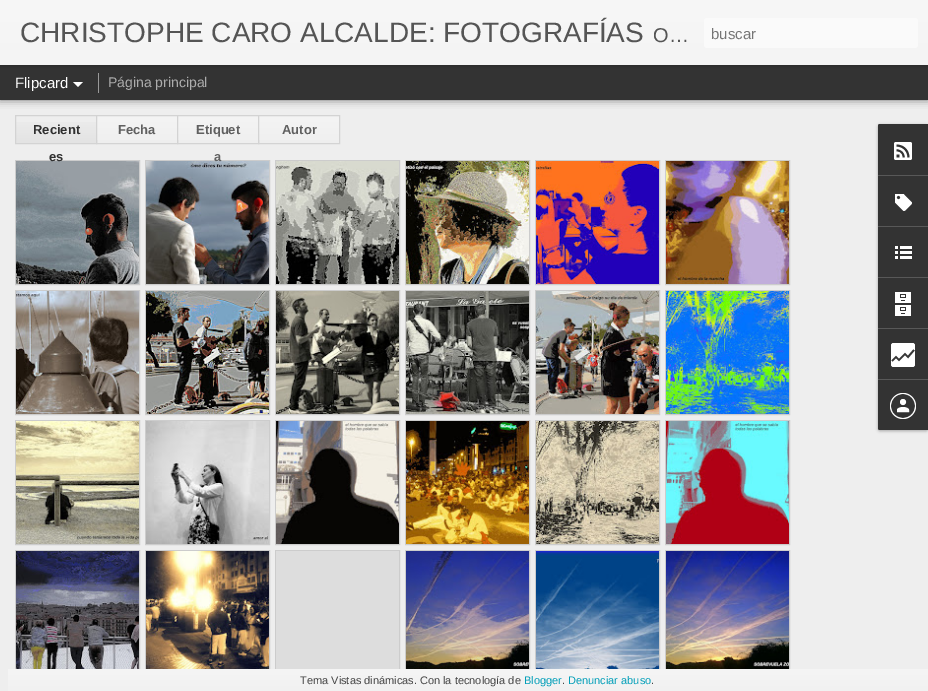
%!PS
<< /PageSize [928 691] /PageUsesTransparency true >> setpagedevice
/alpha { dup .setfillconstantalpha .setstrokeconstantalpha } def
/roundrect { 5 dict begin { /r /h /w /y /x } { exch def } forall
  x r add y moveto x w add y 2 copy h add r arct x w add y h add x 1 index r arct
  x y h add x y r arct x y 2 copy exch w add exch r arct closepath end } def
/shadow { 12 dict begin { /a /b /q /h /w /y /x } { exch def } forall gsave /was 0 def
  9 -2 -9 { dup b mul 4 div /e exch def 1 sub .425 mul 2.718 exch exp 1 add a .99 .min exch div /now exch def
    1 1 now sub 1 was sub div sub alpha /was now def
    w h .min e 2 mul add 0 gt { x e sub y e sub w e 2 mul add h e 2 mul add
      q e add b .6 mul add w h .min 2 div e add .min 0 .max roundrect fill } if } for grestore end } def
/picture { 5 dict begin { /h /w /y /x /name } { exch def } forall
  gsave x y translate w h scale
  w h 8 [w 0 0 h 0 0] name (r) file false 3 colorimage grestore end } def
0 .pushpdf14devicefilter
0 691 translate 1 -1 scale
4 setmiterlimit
0.933 setgray
0 0 928 691 rectfill
0 setgray
0 65 928 35 0 4 0.5 shadow
0.2 setgray
0 65 928 35 rectfill
0.6 setgray
98 73 1 20 rectfill
0 setgray
0 0 928 65 0 2.5 0.3 shadow
gsave newpath 0 0 moveto 928 0 lineto 928 65 lineto 0 65 lineto closepath clip newpath
<< /ShadingType 2 /ColorSpace /DeviceRGB /Coords [0 0 0 65] /Extend [true true] /Function << /FunctionType 2 /Domain [0 1] /C0 [0.969 0.969 0.969] /C1 [0.957 0.957 0.957] /N 1 >> >> shfill grestore
/LiberationSans-Regular [28 0 0 -28 0 0] selectfont
0.333 setgray
20 42 moveto (CHRISTOPHE CARO ALCALDE: FOTOGRAFÍAS) show
/LiberationSans-Regular [20 0 0 -20 0 0] selectfont
653 42 moveto (O…) show
0.98 setgray
704 18 214 30 3 roundrect fill
/LiberationSans-Regular [15 0 0 -15 0 0] selectfont
0.459 setgray
711 39 moveto (buscar) show
1 setgray
15 88 moveto (Flipcard) show
newpath 73 82 moveto 83 82 lineto 78 87 lineto closepath fill
/LiberationSans-Regular [14 0 0 -14 0 0] selectfont
0.678 setgray
108 87 moveto (Página principal) show
gsave newpath 16 122 moveto 96 122 lineto 96 143 lineto 16 143 lineto closepath clip newpath
<< /ShadingType 2 /ColorSpace /DeviceRGB /Coords [56 116 56 143] /Extend [true true] /Function << /FunctionType 2 /Domain [0 1] /C0 [0.933 0.933 0.933] /C1 [0.89 0.89 0.89] /N 1 >> >> shfill grestore
0.827 setgray
15.5 115.5 81 28 rectstroke
/LiberationSans-Bold [13 0 0 -13 0 0] selectfont
0.188 setgray
33 134 moveto (Recient) show
0.8 setgray
15.5 160.5 124 124 rectstroke
(img1.rgb) 16 161 123 123 picture
0.188 setgray
49 161 moveto (es) show
gsave newpath 97 116 moveto 177 116 lineto 177 140 lineto 97 140 lineto closepath clip newpath
<< /ShadingType 2 /ColorSpace /DeviceRGB /Coords [137 116 137 143] /Extend [true true] /Function << /FunctionType 2 /Domain [0 1] /C0 [0.957 0.957 0.957] /C1 [0.941 0.941 0.941] /N 1 >> >> shfill grestore
0.827 setgray
96.5 115.5 81 28 rectstroke
0.376 setgray
118 134 moveto (Fecha) show
gsave newpath 178 116 moveto 258 116 lineto 258 140 lineto 178 140 lineto closepath clip newpath
<< /ShadingType 2 /ColorSpace /DeviceRGB /Coords [218 116 218 143] /Extend [true true] /Function << /FunctionType 2 /Domain [0 1] /C0 [0.957 0.957 0.957] /C1 [0.941 0.941 0.941] /N 1 >> >> shfill grestore
0.827 setgray
177.5 115.5 81 28 rectstroke
0.376 setgray
196 134 moveto (Etiquet) show
0.8 setgray
145.5 160.5 124 124 rectstroke
(img2.rgb) 146 161 123 123 picture
0.376 setgray
214 161 moveto (a) show
gsave newpath 259 116 moveto 339 116 lineto 339 140 lineto 259 140 lineto closepath clip newpath
<< /ShadingType 2 /ColorSpace /DeviceRGB /Coords [299 116 299 143] /Extend [true true] /Function << /FunctionType 2 /Domain [0 1] /C0 [0.957 0.957 0.957] /C1 [0.941 0.941 0.941] /N 1 >> >> shfill grestore
0.827 setgray
258.5 115.5 81 28 rectstroke
0.376 setgray
282 134 moveto (Autor) show
0.8 setgray
275.5 160.5 124 124 rectstroke
(img3.rgb) 276 161 123 123 picture
405.5 160.5 124 124 rectstroke
(img4.rgb) 406 161 123 123 picture
535.5 160.5 124 124 rectstroke
(img5.rgb) 536 161 123 123 picture
665.5 160.5 124 124 rectstroke
(img6.rgb) 666 161 123 123 picture
15.5 290.5 124 124 rectstroke
(img7.rgb) 16 291 123 123 picture
145.5 290.5 124 124 rectstroke
(img8.rgb) 146 291 123 123 picture
275.5 290.5 124 124 rectstroke
(img9.rgb) 276 291 123 123 picture
405.5 290.5 124 124 rectstroke
(img10.rgb) 406 291 123 123 picture
535.5 290.5 124 124 rectstroke
(img11.rgb) 536 291 123 123 picture
665.5 290.5 124 124 rectstroke
(img12.rgb) 666 291 123 123 picture
15.5 420.5 124 124 rectstroke
(img13.rgb) 16 421 123 123 picture
145.5 420.5 124 124 rectstroke
(img14.rgb) 146 421 123 123 picture
275.5 420.5 124 124 rectstroke
(img15.rgb) 276 421 123 123 picture
405.5 420.5 124 124 rectstroke
(img16.rgb) 406 421 123 123 picture
535.5 420.5 124 124 rectstroke
(img17.rgb) 536 421 123 123 picture
665.5 420.5 124 124 rectstroke
(img18.rgb) 666 421 123 123 picture
15.5 550.5 124 124 rectstroke
(img19.rgb) 16 551 123 118 picture
145.5 550.5 124 124 rectstroke
(img20.rgb) 146 551 123 118 picture
275.5 550.5 124 124 rectstroke
0.867 setgray
276 551 123 118 rectfill
0.8 setgray
405.5 550.5 124 124 rectstroke
(img21.rgb) 406 551 123 118 picture
535.5 550.5 124 124 rectstroke
(img22.rgb) 536 551 123 118 picture
665.5 550.5 124 124 rectstroke
(img23.rgb) 666 551 123 118 picture
0 setgray
878 125 50 306 2 1.5 0.3 shadow
0.2 setgray
newpath 880 124 moveto 928 124 lineto 928 430 lineto 880 430 lineto 879 430 878 429 878 428 curveto 878 126 lineto 878 125 879 124 880 124 curveto closepath fill
newpath 880 124 moveto 928 124 lineto 928 175 lineto 878 175 lineto 878 126 lineto 878 125 879 124 880 124 curveto closepath fill
(img24.rgb) 894 142 18 18 picture
0.345 setgray
878 175 50 1 rectfill
(img25.rgb) 895 194 17 17 picture
878 226 50 1 rectfill
(img26.rgb) 895 246 17 13 picture
878 277 50 1 rectfill
(img27.rgb) 895 292 16 24 picture
878 328 50 1 rectfill
(img28.rgb) 891 343 24 24 picture
0.2 setgray
newpath 878 379 moveto 928 379 lineto 928 430 lineto 880 430 lineto 879 430 878 429 878 428 curveto closepath fill
0.345 setgray
878 379 50 1 rectfill
(img29.rgb) 890 393 26 26 picture
gsave newpath 8 669 moveto 928 669 lineto 928 691 lineto 8 691 lineto closepath clip newpath
<< /ShadingType 2 /ColorSpace /DeviceRGB /Coords [477 669 477 691] /Extend [true true] /Function << /FunctionType 2 /Domain [0 1] /C0 [0.961 0.961 0.961] /C1 [0.945 0.945 0.945] /N 1 >> >> shfill grestore
/LiberationSans-Regular [11 0 0 -11 0 0] selectfont
0.267 setgray
300 684 moveto (Tema Vistas dinámicas. Con la tecnología de) show
0 0.62 0.722 setrgbcolor
524 684 moveto (Blogger) show
0.267 setgray
562 684 moveto (.) show
0 0.62 0.722 setrgbcolor
568 684 moveto (Denunciar abuso) show
0.267 setgray
651 684 moveto (.) show
.poppdf14devicefilter showpage
